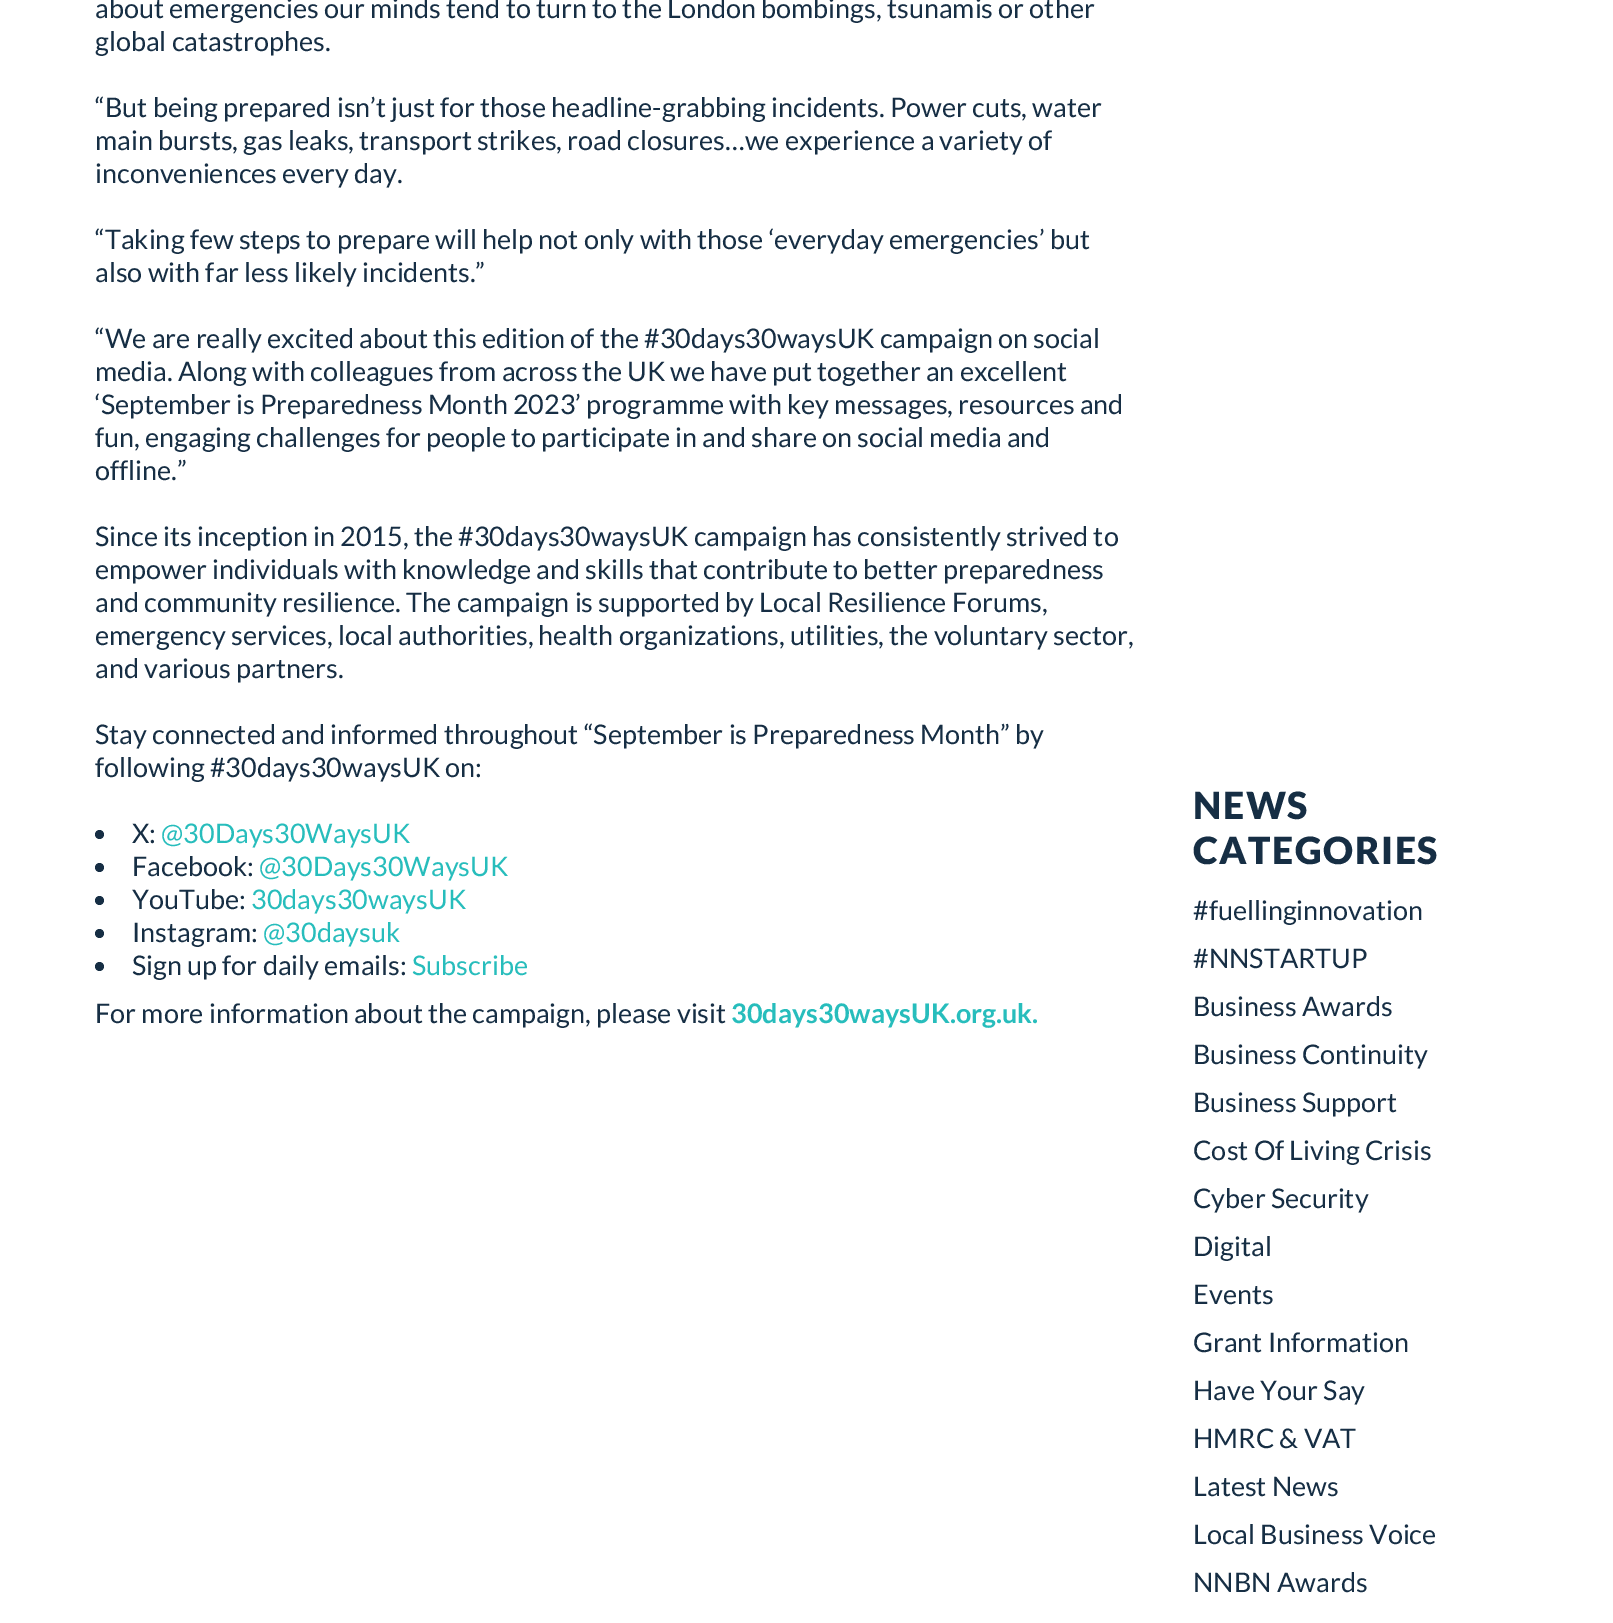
%!PS
<< /PageSize [1613 1623] >> setpagedevice
0 1623 translate 1 -1 scale
4 setmiterlimit
1 setgray
0 0 1613 1623 rectfill
/Lato-Regular [27 0 0 -27 0 0] selectfont
0.086 0.18 0.267 setrgbcolor
95 18 moveto (about emergencies our minds tend to turn to the London bombings, tsunamis or other) show
95 51 moveto (global catastrophes.) show
95 117 moveto (“But being prepared isn’t just for those headline-grabbing incidents. Power cuts, water) show
95 150 moveto (main bursts, gas leaks, transport strikes, road closures…we experience a variety of) show
95 183 moveto (inconveniences every day.) show
95 249 moveto (“Taking few steps to prepare will help not only with those ‘everyday emergencies’ but) show
95 282 moveto (also with far less likely incidents.”) show
95 348 moveto (“We are really excited about this edition of the #30days30waysUK campaign on social) show
95 381 moveto (media. Along with colleagues from across the UK we have put together an excellent) show
95 414 moveto (‘September is Preparedness Month 2023’ programme with key messages, resources and) show
95 447 moveto (fun, engaging challenges for people to participate in and share on social media and) show
95 480 moveto (offline.”) show
95 546 moveto (Since its inception in 2015, the #30days30waysUK campaign has consistently strived to) show
95 579 moveto (empower individuals with knowledge and skills that contribute to better preparedness) show
95 612 moveto (and community resilience. The campaign is supported by Local Resilience Forums,) show
95 645 moveto (emergency services, local authorities, health organizations, utilities, the voluntary sector,) show
95 678 moveto (and various partners.) show
95 744 moveto (Stay connected and informed throughout “September is Preparedness Month” by) show
95 777 moveto (following #30days30waysUK on:) show
newpath 99.5 834.5 4.5 0 360 arc closepath fill
132 843 moveto (X:) show
0.153 0.741 0.737 setrgbcolor
161 843 moveto (@30Days30WaysUK) show
0.086 0.18 0.267 setrgbcolor
newpath 99.5 867.5 4.5 0 360 arc closepath fill
132 876 moveto (Facebook:) show
0.153 0.741 0.737 setrgbcolor
259 876 moveto (@30Days30WaysUK) show
0.086 0.18 0.267 setrgbcolor
newpath 99.5 900.5 4.5 0 360 arc closepath fill
132 909 moveto (YouTube:) show
0.153 0.741 0.737 setrgbcolor
251 909 moveto (30days30waysUK) show
0.086 0.18 0.267 setrgbcolor
newpath 99.5 933.5 4.5 0 360 arc closepath fill
132 942 moveto (Instagram:) show
0.153 0.741 0.737 setrgbcolor
263 942 moveto (@30daysuk) show
0.086 0.18 0.267 setrgbcolor
newpath 99.5 966.5 4.5 0 360 arc closepath fill
132 975 moveto (Sign up for daily emails:) show
0.153 0.741 0.737 setrgbcolor
412 975 moveto (Subscribe) show
0.086 0.18 0.267 setrgbcolor
95 1023 moveto (For more information about the campaign, please visit) show
/Lato-Bold [27 0 0 -27 0 0] selectfont
0.153 0.741 0.737 setrgbcolor
731 1023 moveto (30days30waysUK.org.uk.) show
/Lato-Black [37.5 0 0 -37.5 0 0] selectfont
0.086 0.18 0.267 setrgbcolor
1193 819 moveto 1.5 0 (NEWS) ashow
1193 864 moveto 1.5 0 (CATEGORIES) ashow
/Lato-Regular [27 0 0 -27 0 0] selectfont
1193 920 moveto (#fuellinginnovation) show
1193 968 moveto (#NNSTARTUP) show
1193 1016 moveto (Business Awards) show
1193 1064 moveto (Business Continuity) show
1193 1112 moveto (Business Support) show
1193 1160 moveto (Cost Of Living Crisis) show
1193 1208 moveto (Cyber Security) show
1193 1256 moveto (Digital) show
1193 1304 moveto (Events) show
1193 1352 moveto (Grant Information) show
1193 1400 moveto (Have Your Say) show
1193 1448 moveto (HMRC & VAT) show
1193 1496 moveto (Latest News) show
1193 1544 moveto (Local Business Voice) show
1193 1592 moveto (NNBN Awards) show
showpage
